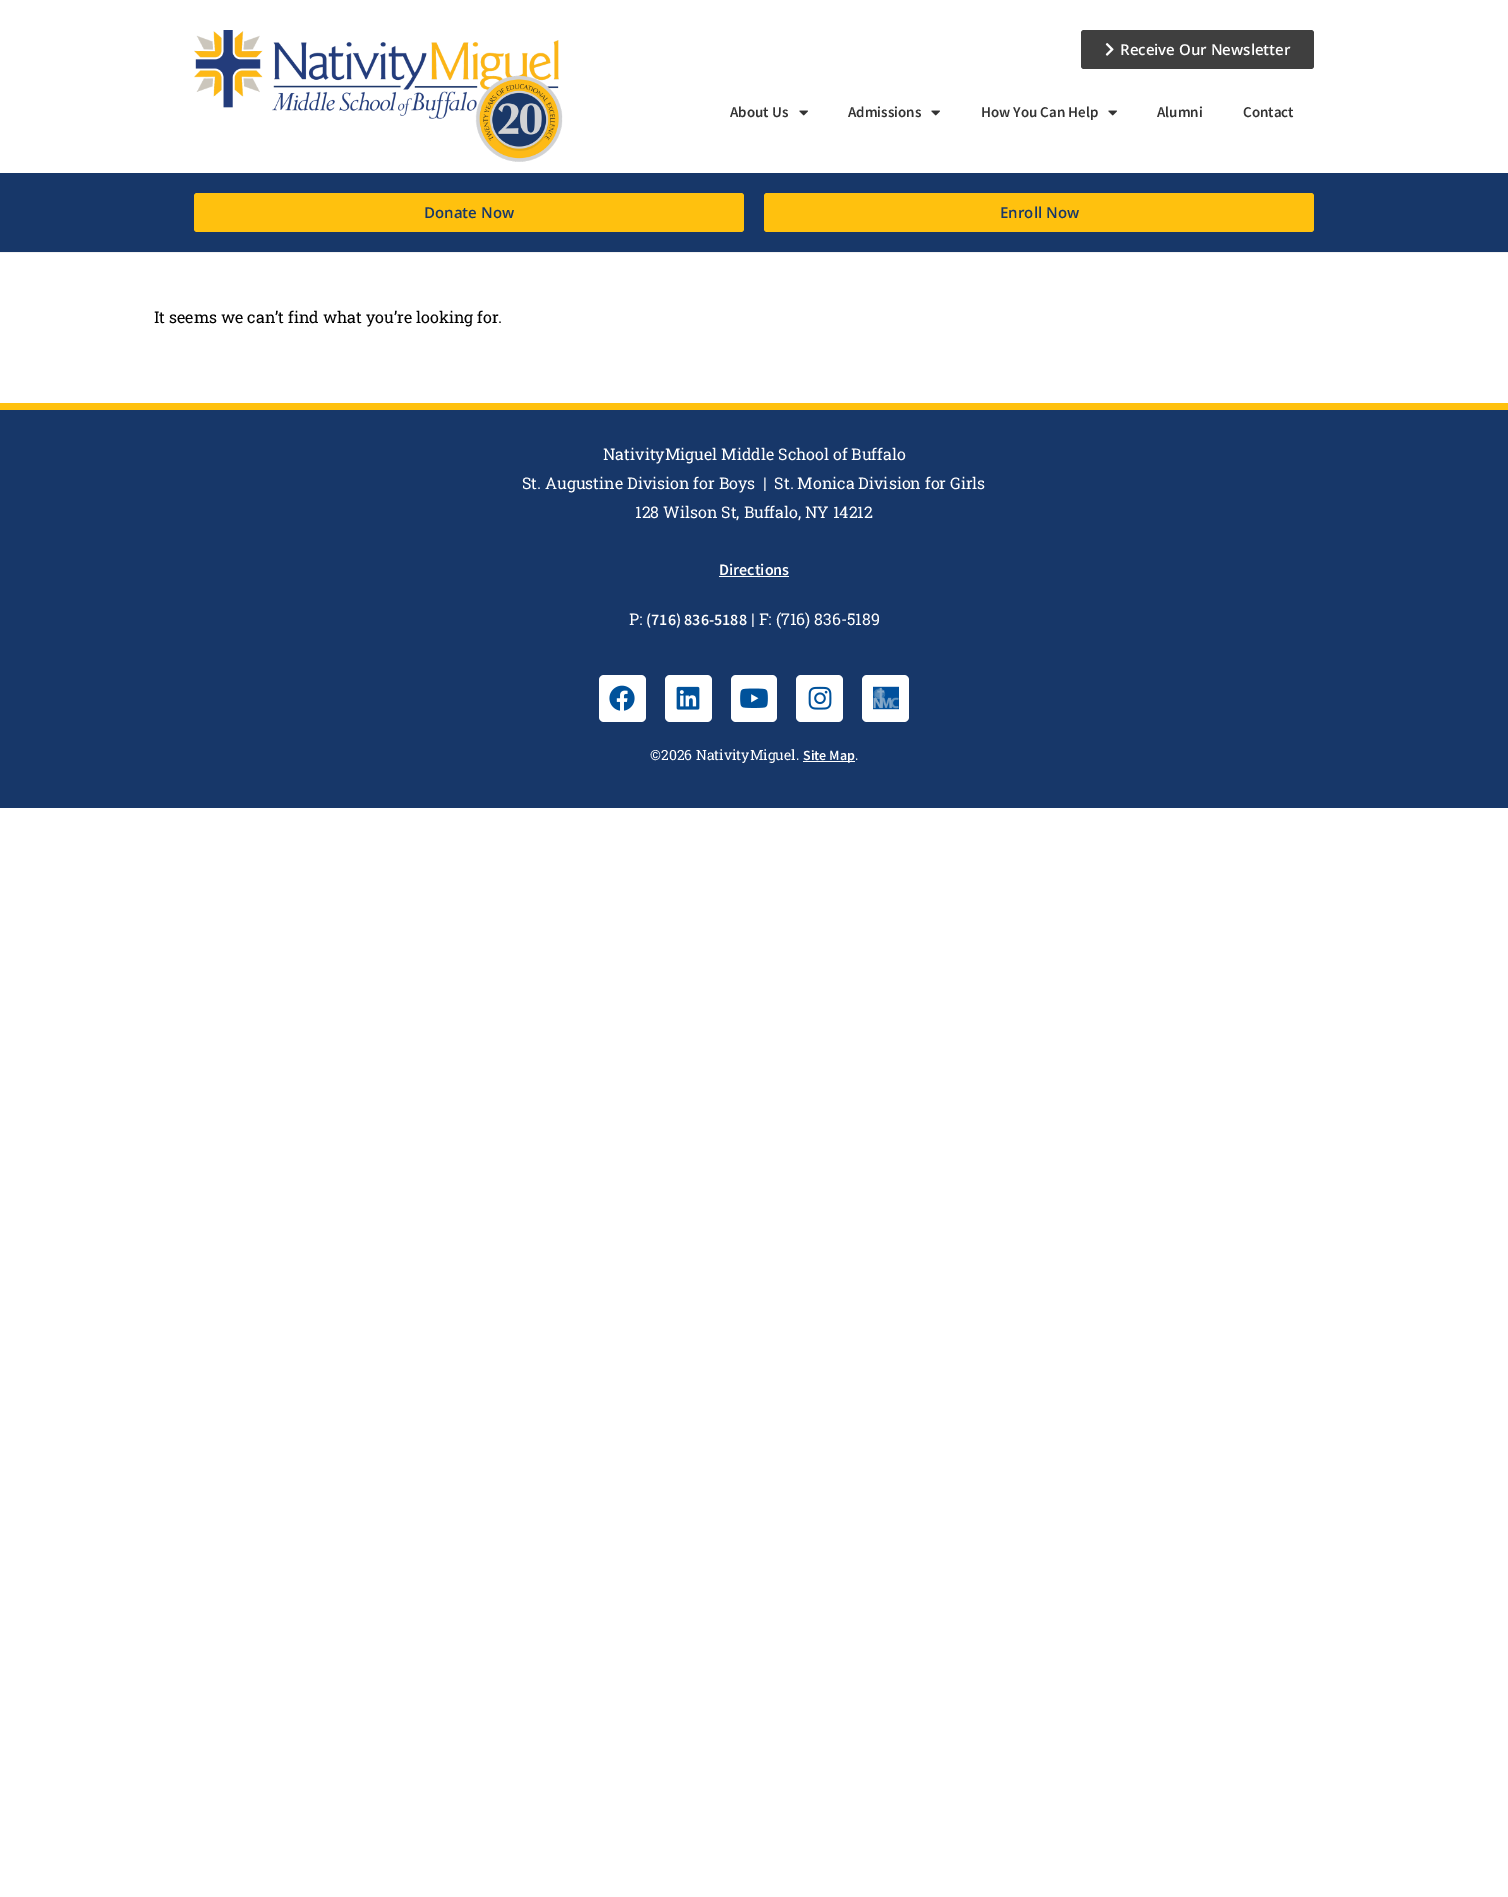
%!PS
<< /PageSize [1508 1897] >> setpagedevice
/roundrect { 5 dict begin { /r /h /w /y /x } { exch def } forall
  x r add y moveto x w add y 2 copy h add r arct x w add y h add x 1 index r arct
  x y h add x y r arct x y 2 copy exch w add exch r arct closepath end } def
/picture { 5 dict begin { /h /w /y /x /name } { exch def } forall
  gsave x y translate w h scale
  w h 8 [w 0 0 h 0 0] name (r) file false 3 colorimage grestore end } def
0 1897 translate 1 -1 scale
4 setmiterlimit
1 setgray
0 0 1508 1897 rectfill
0.945 setgray
0 252 1508 1 rectfill
(img1.rgb) 194 30 369 132 picture
0.247 setgray
1081 30 233 39 3 roundrect fill
(img2.rgb) 1105 43 9 13 picture
/OpenSans-SemiBold [15 0 0 -15 0 0] selectfont
1 setgray
1120 55 moveto (Receive Our Newsletter) show
/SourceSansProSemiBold-SemiBold [15 0 0 -15 0 0] selectfont
0.2 setgray
730 117 moveto (About Us) show
(img3.rgb) 799 110 9 6 picture
848 117 moveto (Admissions) show
(img3.rgb) 931 110 9 6 picture
981 117 moveto (How You Can Help) show
(img3.rgb) 1108 110 9 6 picture
1157 117 moveto (Alumni) show
1243 117 moveto (Contact) show
0.09 0.216 0.412 setrgbcolor
0 173 1508 79 rectfill
1 0.757 0.055 setrgbcolor
194 193 550 39 3 roundrect fill
/OpenSans-SemiBold [15 0 0 -15 0 0] selectfont
0.09 0.216 0.412 setrgbcolor
424 218 moveto (Donate Now) show
1 0.757 0.055 setrgbcolor
764 193 550 39 3 roundrect fill
0.09 0.216 0.412 setrgbcolor
1000 218 moveto (Enroll Now) show
/RobotoSlab-Regular [16 0 0 -16 0 0] selectfont
0.012 setgray
154 323 moveto (It seems we can’t find what you’re looking for.) show
0.09 0.216 0.412 setrgbcolor
0 410 1508 398 rectfill
1 0.757 0.055 setrgbcolor
0 403 1508 7 rectfill
1 setgray
603 460 moveto (NativityMiguel Middle School of Buffalo) show
522 489 moveto (St. Augustine Division for Boys  |  St. Monica Division for Girls) show
635 518 moveto (128 Wilson St, Buffalo, NY 14212) show
/SourceSansProSemiBold-SemiBold [16 0 0 -16 0 0] selectfont
719 575 moveto (Directions) show
719 576 70 1 rectfill
/RobotoSlab-Regular [16 0 0 -16 0 0] selectfont
629 625 moveto (P:) show
/SourceSansProSemiBold-SemiBold [16 0 0 -16 0 0] selectfont
646 625 moveto (\(716\) 836-5188) show
/RobotoSlab-Regular [16 0 0 -16 0 0] selectfont
751 625 moveto (| F: \(716\) 836-5189) show
599 675 47 47 5 roundrect fill
(img4.rgb) 609 685 26 26 picture
665 675 47 47 5 roundrect fill
(img5.rgb) 676 686 24 24 picture
731 675 46 47 5 roundrect fill
(img6.rgb) 740 688 28 20 picture
796 675 47 47 5 roundrect fill
(img7.rgb) 808 686 24 24 picture
862 675 47 47 5 roundrect fill
(img8.rgb) 873 686 26 24 picture
/RobotoSlab-Regular [14 0 0 -14 0 0] selectfont
650 760 moveto (©2026 NativityMiguel.) show
803 761 52 1 rectfill
/SourceSansProSemiBold-SemiBold [14 0 0 -14 0 0] selectfont
803 760 moveto (Site Map) show
/RobotoSlab-Regular [14 0 0 -14 0 0] selectfont
855 760 moveto (.) show
showpage
